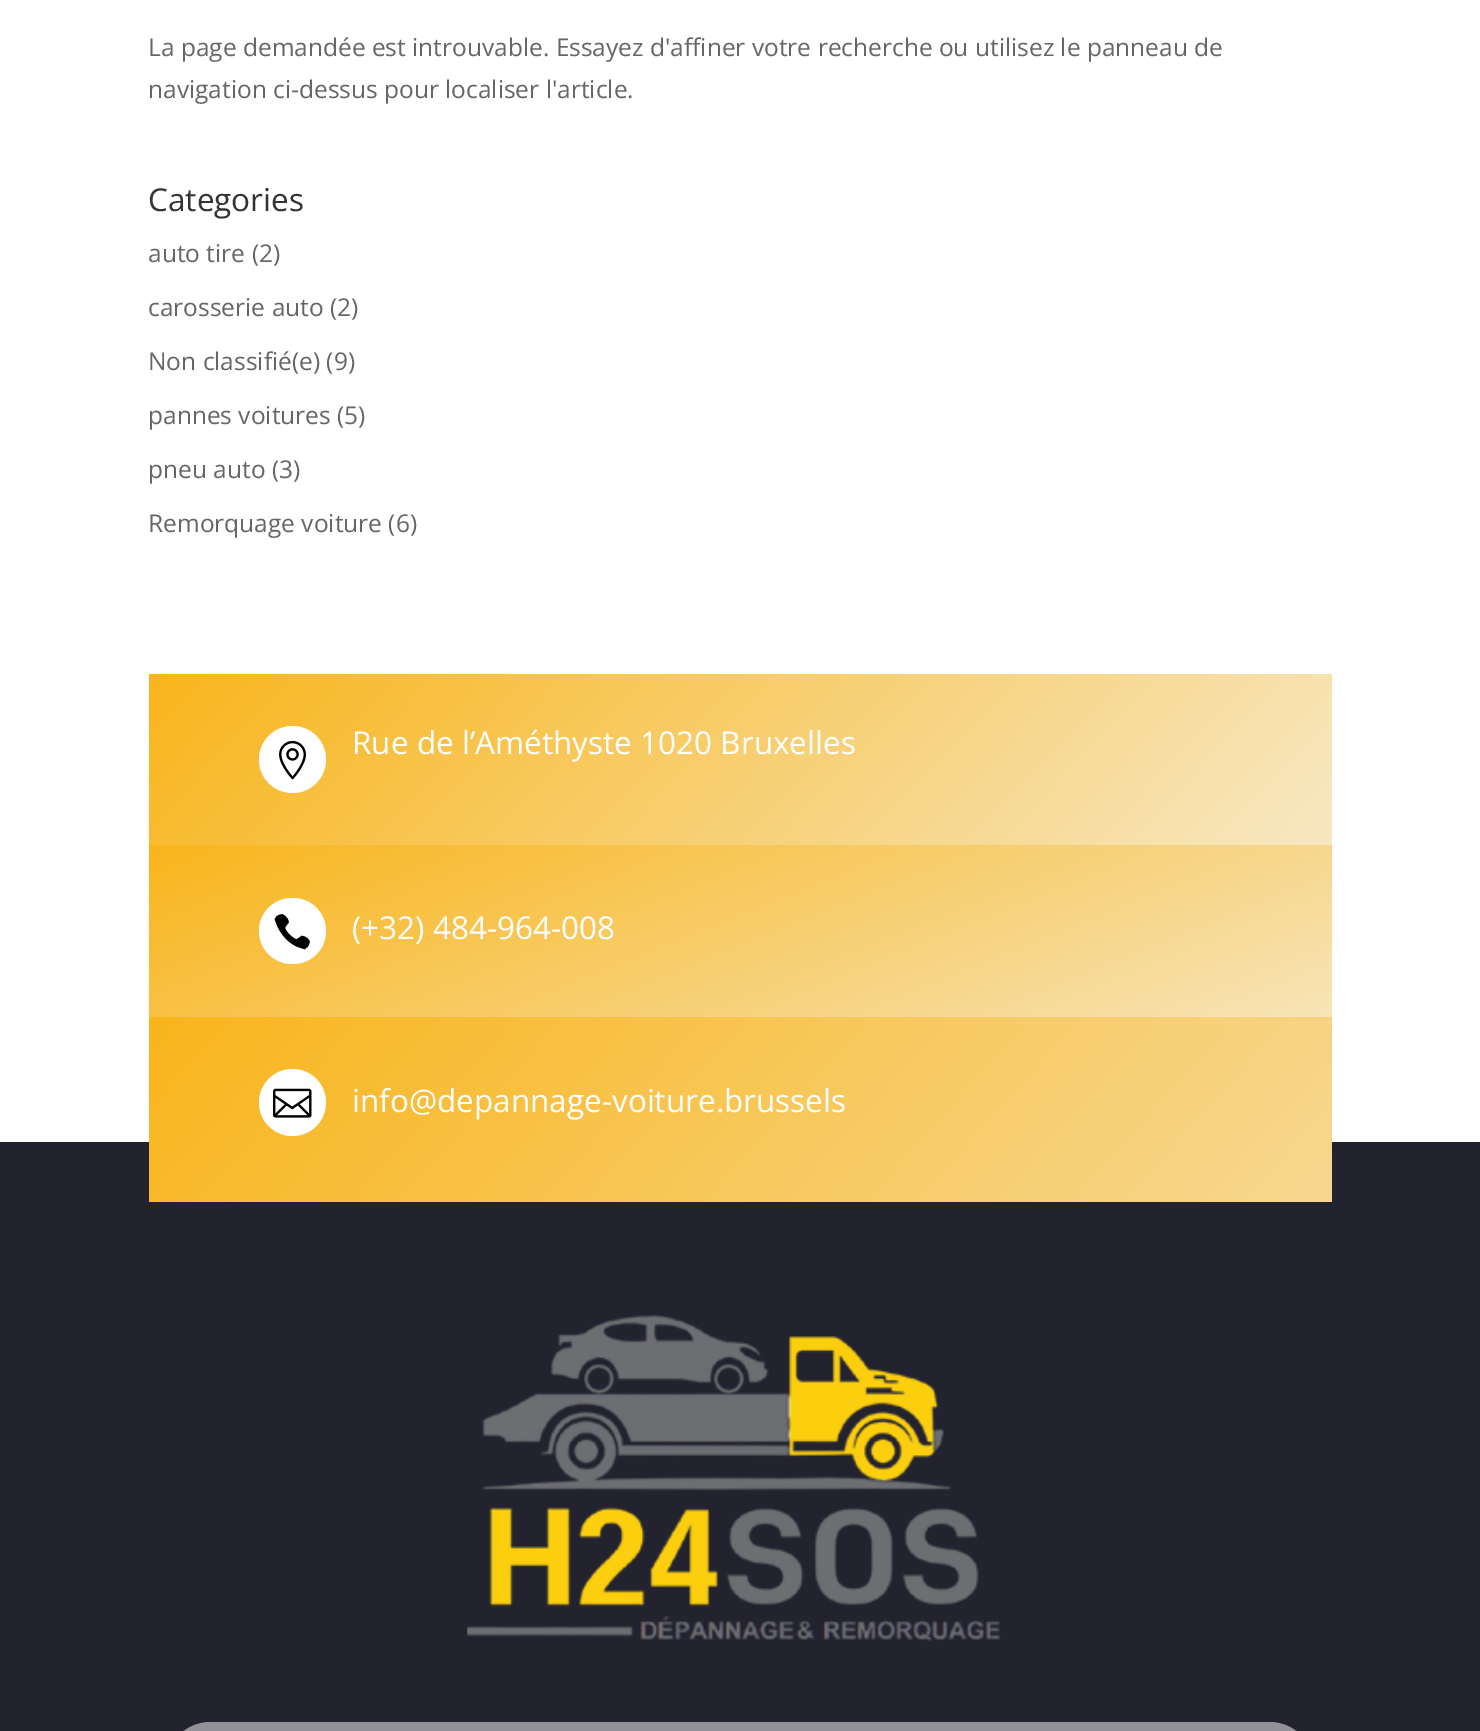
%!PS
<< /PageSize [1480 1731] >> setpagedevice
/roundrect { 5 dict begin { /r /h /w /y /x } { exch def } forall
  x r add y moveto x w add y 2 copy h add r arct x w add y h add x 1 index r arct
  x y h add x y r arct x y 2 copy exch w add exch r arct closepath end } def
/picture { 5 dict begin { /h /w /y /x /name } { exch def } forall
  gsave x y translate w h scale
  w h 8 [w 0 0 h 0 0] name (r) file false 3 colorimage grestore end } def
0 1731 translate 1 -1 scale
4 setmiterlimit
1 setgray
0 0 1480 1731 rectfill
/OpenSans-Regular [24.5 0 0 -24.5 0 0] selectfont
0.4 setgray
148 56 moveto (La page demandée est introuvable. Essayez d'affiner votre recherche ou utilisez le panneau de) show
148 98 moveto (navigation ci-dessus pour localiser l'article.) show
/OpenSans-Regular [31.5 0 0 -31.5 0 0] selectfont
0.2 setgray
148 211 moveto (Categories) show
/OpenSans-Regular [24.5 0 0 -24.5 0 0] selectfont
0.4 setgray
148 262 moveto (auto tire \(2\)) show
148 316 moveto (carosserie auto \(2\)) show
148 370 moveto (Non classifié\(e\) \(9\)) show
148 424 moveto (pannes voitures \(5\)) show
148 478 moveto (pneu auto \(3\)) show
148 532 moveto (Remorquage voiture \(6\)) show
gsave newpath 149 674 moveto 1332 674 lineto 1332 845 lineto 149 845 lineto closepath clip newpath
<< /ShadingType 2 /ColorSpace /DeviceRGB /Coords [391 423 1089 1096] /Extend [true true] /Function << /FunctionType 2 /Domain [0 1] /C0 [0.973 0.71 0.11] /C1 [0.969 0.91 0.765] /N 1 >> >> shfill grestore
1 setgray
newpath 292.5 759.5 33.5 0 360 arc closepath fill
(img1.rgb) 279 740 27 40 picture
/OpenSans-Regular [31.5 0 0 -31.5 0 0] selectfont
352 754 moveto (Rue de l’Améthyste 1020 Bruxelles) show
gsave newpath 149 845 moveto 1332 845 lineto 1332 1017 lineto 149 1017 lineto closepath clip newpath
<< /ShadingType 2 /ColorSpace /DeviceRGB /Coords [627 652 853 1210] /Extend [true true] /Function << /FunctionType 2 /Domain [0 1] /C0 [0.973 0.71 0.11] /C1 [0.969 0.894 0.718] /N 1 >> >> shfill grestore
259 898 67 66 33 roundrect fill
(img2.rgb) 274 914 36 36 picture
352 939 moveto (\(+32\) 484-964-008) show
0.137 0.137 0.184 setrgbcolor
0 1142 1480 589 rectfill
gsave newpath 149 1017 moveto 1332 1017 lineto 1332 1202 lineto 149 1202 lineto closepath clip newpath
<< /ShadingType 2 /ColorSpace /DeviceRGB /Coords [367 774 1113 1445] /Extend [true true] /Function << /FunctionType 2 /Domain [0 1] /C0 [0.973 0.71 0.11] /C1 [0.969 0.847 0.569] /N 1 >> >> shfill grestore
1 setgray
newpath 292.5 1102.5 33.5 0 360 arc closepath fill
(img3.rgb) 273 1088 39 30 picture
352 1112 moveto (info@depannage-voiture.brussels) show
(img4.rgb) 467 1315 534 327 picture
0.569 0.569 0.592 setrgbcolor
166 1722 1148 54 44.5 roundrect fill
showpage
